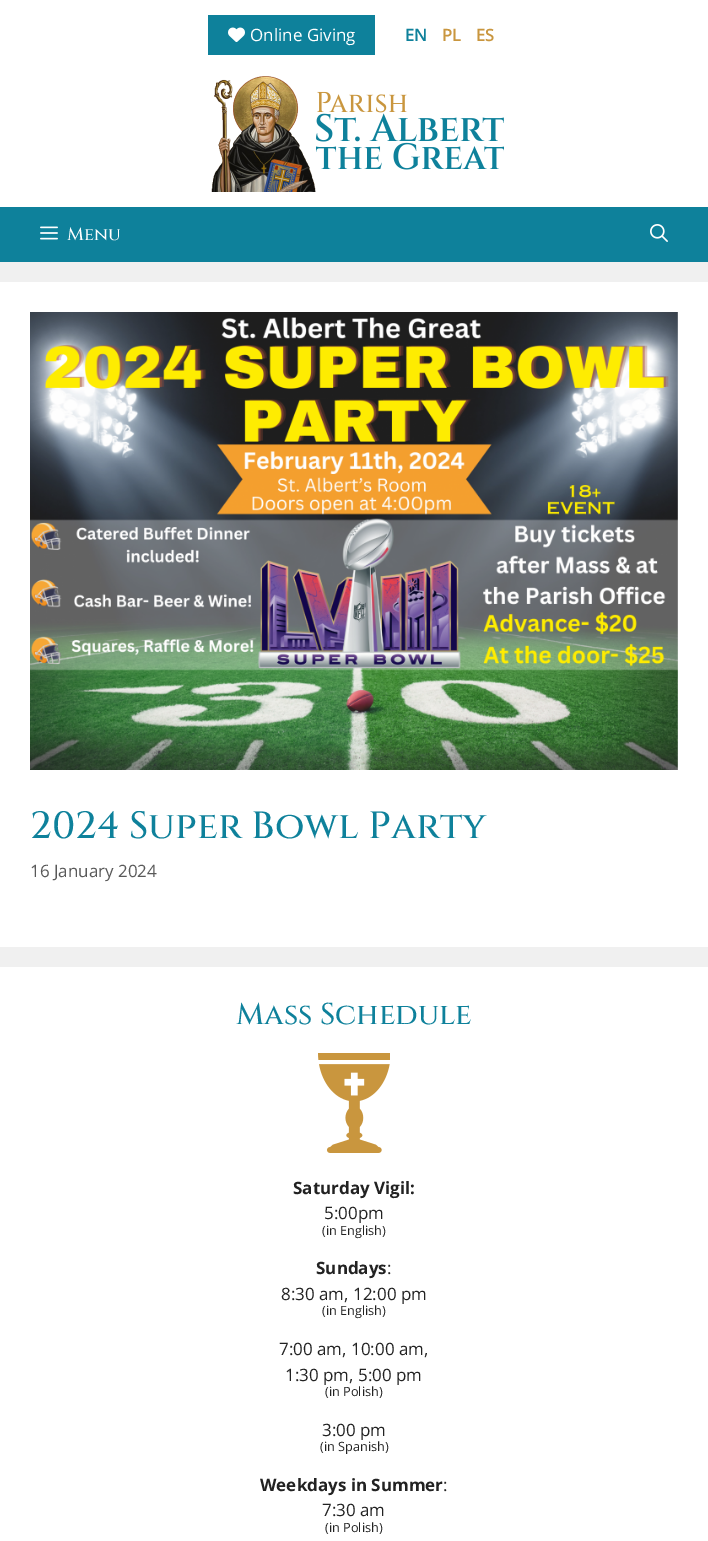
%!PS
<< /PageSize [708 1541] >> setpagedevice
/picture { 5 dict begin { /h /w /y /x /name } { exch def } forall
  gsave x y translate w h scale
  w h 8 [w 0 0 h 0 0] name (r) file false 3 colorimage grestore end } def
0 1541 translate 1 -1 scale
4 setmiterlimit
0.941 setgray
0 0 708 1541 rectfill
1 setgray
0 0 708 207 rectfill
0.055 0.506 0.608 setrgbcolor
208 15 167 40 rectfill
(img1.rgb) 228 27 17 15 picture
/OpenSans-Regular [17 0 0 -17 0 0] selectfont
1 setgray
250 41 moveto (Online Giving) show
/OpenSans-SemiBold [17 0 0 -17 0 0] selectfont
0.055 0.506 0.608 setrgbcolor
405 41 moveto (EN) show
0.788 0.588 0.243 setrgbcolor
442 41 moveto (PL) show
476 41 moveto (ES) show
(img2.rgb) 211 76 293 116 picture
0.055 0.506 0.608 setrgbcolor
0 207 708 55 rectfill
(img3.rgb) 40 226 18 14 picture
/Cinzel-Medium [18 0 0 -18 0 0] selectfont
1 setgray
67 240 moveto (Menu) show
(img4.rgb) 650 224 18 18 picture
0 282 708 665 rectfill
(img5.rgb) 30 312 648 458 picture
/Cinzel-Medium [38 0 0 -38 0 0] selectfont
0.055 0.506 0.608 setrgbcolor
30 838 moveto (2024 Super Bowl Party) show
/OpenSans-Regular [17 0 0 -17 0 0] selectfont
0.349 setgray
30 877 moveto (16 January 2024) show
1 setgray
0 967 708 574 rectfill
/Cinzel-Medium [30 0 0 -30 0 0] selectfont
0.055 0.506 0.608 setrgbcolor
236 1024 moveto (Mass Schedule) show
(img6.rgb) 318 1053 72 100 picture
/OpenSans-Bold [17 0 0 -17 0 0] selectfont
0.133 setgray
293 1194 moveto (Saturday Vigil:) show
/OpenSans-Regular [17 0 0 -17 0 0] selectfont
324 1219 moveto (5:00pm) show
/OpenSans-Regular [12.75 0 0 -12.75 0 0] selectfont
322 1235 moveto (\(in English\)) show
/OpenSans-Bold [17 0 0 -17 0 0] selectfont
316 1274 moveto (Sundays) show
/OpenSans-Regular [17 0 0 -17 0 0] selectfont
387 1274 moveto (:) show
281 1300 moveto (8:30 am, 12:00 pm) show
/OpenSans-Regular [12.75 0 0 -12.75 0 0] selectfont
322 1315 moveto (\(in English\)) show
/OpenSans-Regular [17 0 0 -17 0 0] selectfont
279 1355 moveto (7:00 am, 10:00 am,) show
285 1381 moveto (1:30 pm, 5:00 pm) show
/OpenSans-Regular [12.75 0 0 -12.75 0 0] selectfont
325 1396 moveto (\(in Polish\)) show
/OpenSans-Regular [17 0 0 -17 0 0] selectfont
322 1436 moveto (3:00 pm) show
/OpenSans-Regular [12.75 0 0 -12.75 0 0] selectfont
320 1451 moveto (\(in Spanish\)) show
/OpenSans-Bold [17 0 0 -17 0 0] selectfont
260 1491 moveto (Weekdays in Summer) show
/OpenSans-Regular [17 0 0 -17 0 0] selectfont
443 1491 moveto (:) show
322 1516 moveto (7:30 am) show
/OpenSans-Regular [12.75 0 0 -12.75 0 0] selectfont
325 1532 moveto (\(in Polish\)) show
showpage
